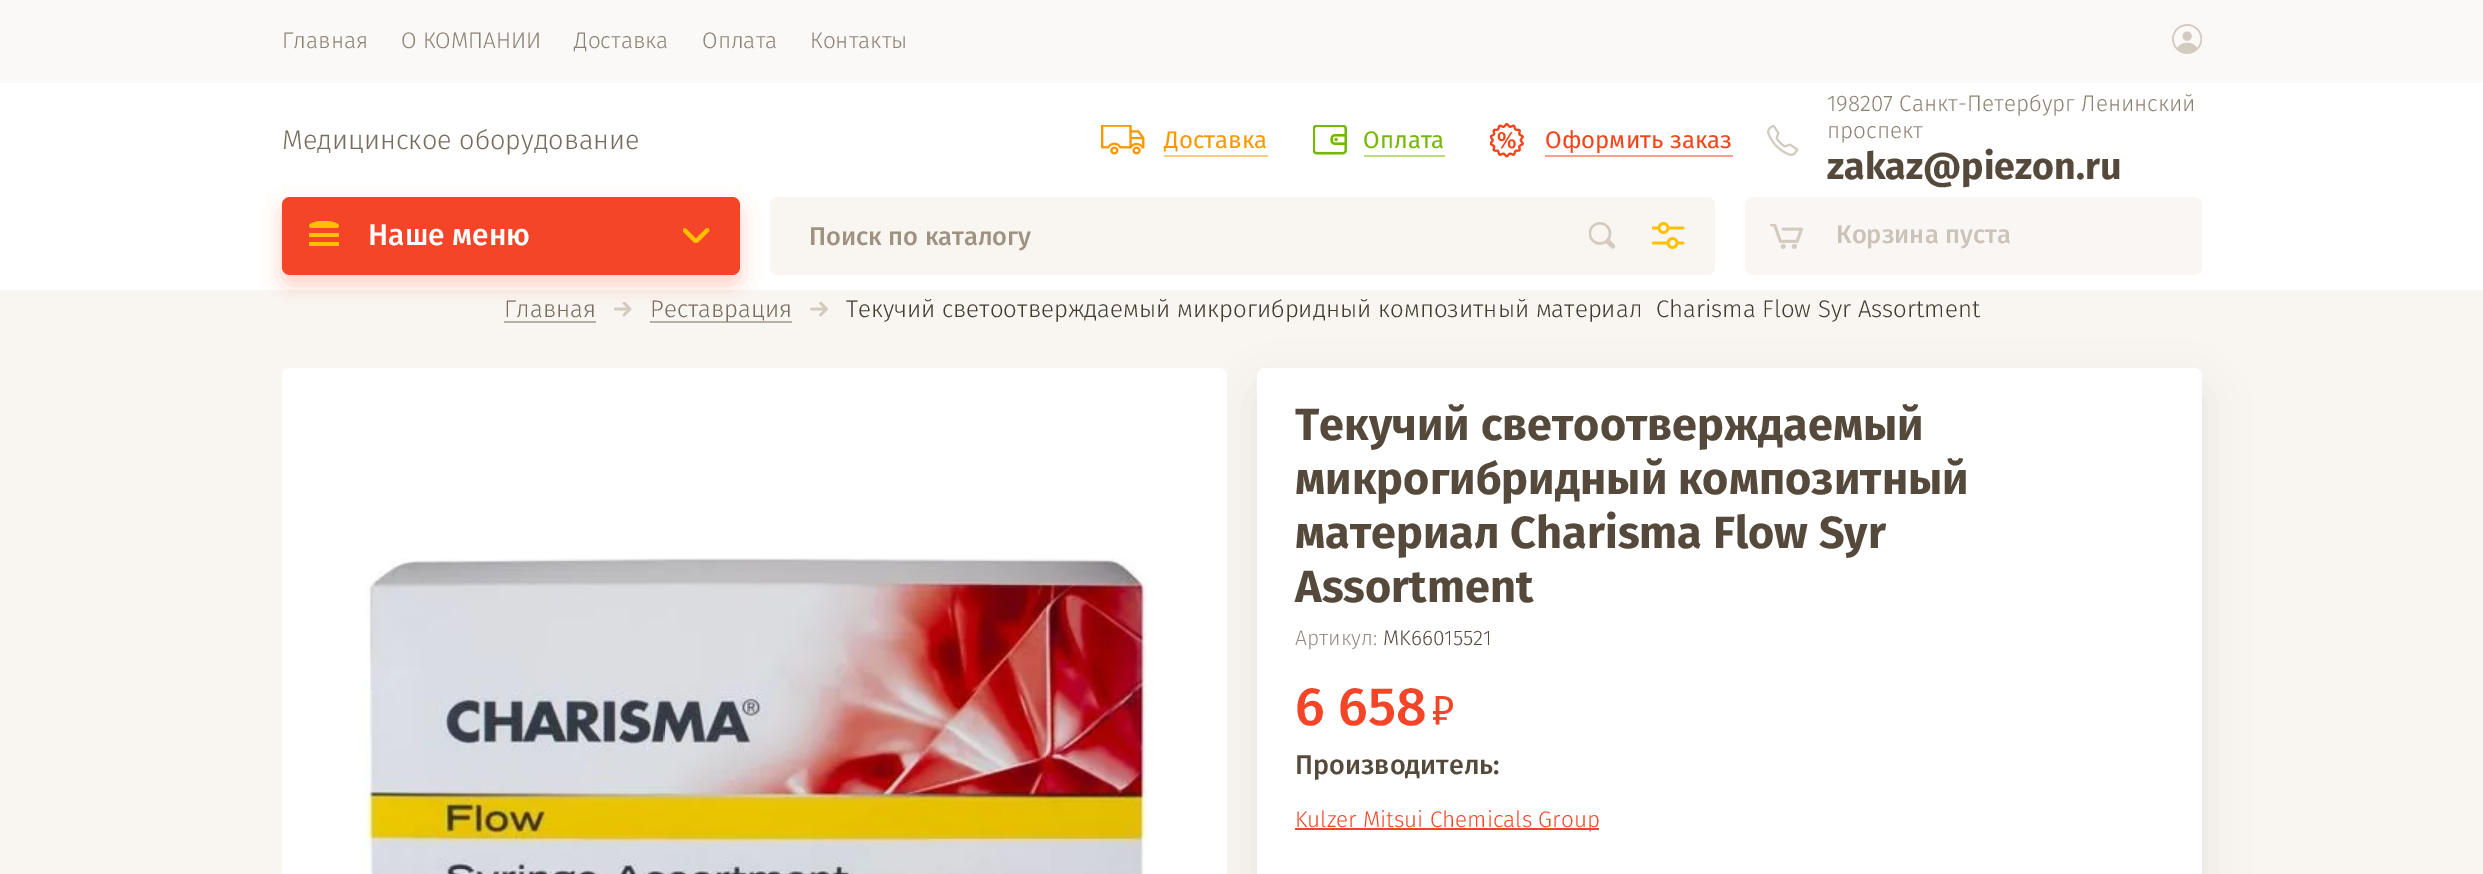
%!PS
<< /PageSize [2483 874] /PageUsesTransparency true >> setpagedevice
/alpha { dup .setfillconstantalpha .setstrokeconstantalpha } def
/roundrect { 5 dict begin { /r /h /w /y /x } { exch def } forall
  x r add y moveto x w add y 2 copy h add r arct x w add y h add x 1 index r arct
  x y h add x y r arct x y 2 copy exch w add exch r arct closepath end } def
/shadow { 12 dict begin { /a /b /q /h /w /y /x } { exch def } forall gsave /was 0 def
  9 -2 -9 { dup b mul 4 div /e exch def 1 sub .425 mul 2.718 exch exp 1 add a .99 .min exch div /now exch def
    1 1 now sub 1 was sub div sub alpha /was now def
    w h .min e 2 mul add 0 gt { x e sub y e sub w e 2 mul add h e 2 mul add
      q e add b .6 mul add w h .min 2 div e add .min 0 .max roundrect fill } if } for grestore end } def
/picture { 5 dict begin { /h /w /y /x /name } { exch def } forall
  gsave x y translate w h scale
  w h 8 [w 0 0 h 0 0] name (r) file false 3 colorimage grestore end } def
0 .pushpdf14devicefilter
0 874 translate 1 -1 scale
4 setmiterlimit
0.976 0.965 0.949 setrgbcolor
0 0 2483 874 rectfill
1 setgray
0 83 2483 207 rectfill
0.98 0.976 0.969 setrgbcolor
0 0 2483 83 rectfill
/FiraSans-Light [22.5 0 0 -22.5 0 0] selectfont
0.549 0.506 0.443 setrgbcolor
282 48 moveto (Главная) show
401 48 moveto (О КОМПАНИИ) show
574 48 moveto (Доставка) show
702 48 moveto (Оплата) show
810 48 moveto (Контакты) show
(img1.rgb) 2172 24 30 30 picture
/FiraSans-Light [27 0 0 -27 0 0] selectfont
0.467 0.424 0.369 setrgbcolor
282 149 moveto (Медицинское оборудование) show
(img2.rgb) 1101 125 44 30 picture
/FiraSans-Regular [24 0 0 -24 0 0] selectfont
0.98 0.596 0 setrgbcolor
1164 148 moveto (Доставка) show
0.992 0.8 0.502 setrgbcolor
1164 155 104 2 rectfill
(img3.rgb) 1313 125 34 30 picture
0.459 0.722 0 setrgbcolor
1363 148 moveto (Оплата) show
0.729 0.863 0.502 setrgbcolor
1364 155 81 2 rectfill
(img4.rgb) 1490 123 34 35 picture
0.961 0.263 0.102 setrgbcolor
1545 148 moveto (Оформить заказ) show
0.98 0.631 0.553 setrgbcolor
1545 155 188 2 rectfill
(img5.rgb) 1767 125 32 31 picture
/FiraSans-Light [22.5 0 0 -22.5 0 0] selectfont
0.549 0.506 0.443 setrgbcolor
1827 111 moveto (198207 Санкт-Петербург Ленинский) show
1827 138 moveto (проспект) show
/FiraSans-Bold [37.5 0 0 -37.5 0 0] selectfont
0.329 0.286 0.231 setrgbcolor
1827 179 moveto (zakaz@piezon.ru) show
(img11.rgb) 614 302 18 15 picture
0.961 0.271 0.157 setrgbcolor
282 207 458 78 8 11 0.27 shadow
282 197 458 78 8 roundrect fill
1 0.753 0 setrgbcolor
309 233 30 4 rectfill
(img6.rgb) 309 221 30 7 picture
309 242 30 4 rectfill
/FiraSans-Medium [30 0 0 -30 0 0] selectfont
1 setgray
368 245 moveto (Наше меню) show
(img7.rgb) 683 228 27 15 picture
0.976 0.965 0.949 setrgbcolor
770 197 945 78 8 roundrect fill
/FiraSans-Medium [25.5 0 0 -25.5 0 0] selectfont
0.624 0.573 0.502 setrgbcolor
809 245 moveto (Поиск по каталогу) show
(img8.rgb) 1589 222 27 27 picture
(img9.rgb) 1652 222 33 27 picture
0.98 0.965 0.953 setrgbcolor
1745 197 457 78 8 roundrect fill
(img10.rgb) 1770 224 33 25 picture
0.796 0.761 0.722 setrgbcolor
1836 243 moveto (Корзина пуста) show
0.71 0.686 0.651 setrgbcolor
504 321 92 2 rectfill
/FiraSans-Light [24 0 0 -24 0 0] selectfont
0.467 0.424 0.369 setrgbcolor
504 317 moveto (Главная) show
0.71 0.686 0.651 setrgbcolor
650 321 142 2 rectfill
0.467 0.424 0.369 setrgbcolor
650 317 moveto (Реставрация) show
(img12.rgb) 810 302 18 15 picture
0.259 0.227 0.18 setrgbcolor
846 317 moveto (Текучий светоотверждаемый микрогибридный композитный материал  Charisma Flow Syr Assortment) show
0 setgray
1257 390 945 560 8 22.5 0.07 shadow
1 setgray
282 368 945 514 8 roundrect fill
(img13.rgb) 363 558 785 316 picture
1257 368 945 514 8 roundrect fill
/FiraSans-Bold [45 0 0 -45 0 0] selectfont
0.329 0.286 0.231 setrgbcolor
1295 440 moveto (Текучий светоотверждаемый) show
1295 494 moveto (микрогибридный композитный) show
1295 548 moveto (материал Charisma Flow Syr) show
1295 602 moveto (Assortment) show
/FiraSans-Light [21 0 0 -21 0 0] selectfont
0.584 0.553 0.514 setrgbcolor
1295 645 moveto (Артикул:) show
0.329 0.286 0.231 setrgbcolor
1383 645 moveto (MK66015521) show
/FiraSans-Medium [54 0 0 -54 0 0] selectfont
0.961 0.271 0.157 setrgbcolor
1295 725 moveto (6 658) show
(img14.rgb) 1433 696 20 29 picture
/FiraSans-Medium [27 0 0 -27 0 0] selectfont
0.329 0.286 0.231 setrgbcolor
1295 774 moveto (Производитель:) show
0.961 0.271 0.157 setrgbcolor
1295 828 304 2 rectfill
/FiraSans-Light [22.5 0 0 -22.5 0 0] selectfont
1295 827 moveto (Kulzer Mitsui Chemicals Group) show
.poppdf14devicefilter showpage
